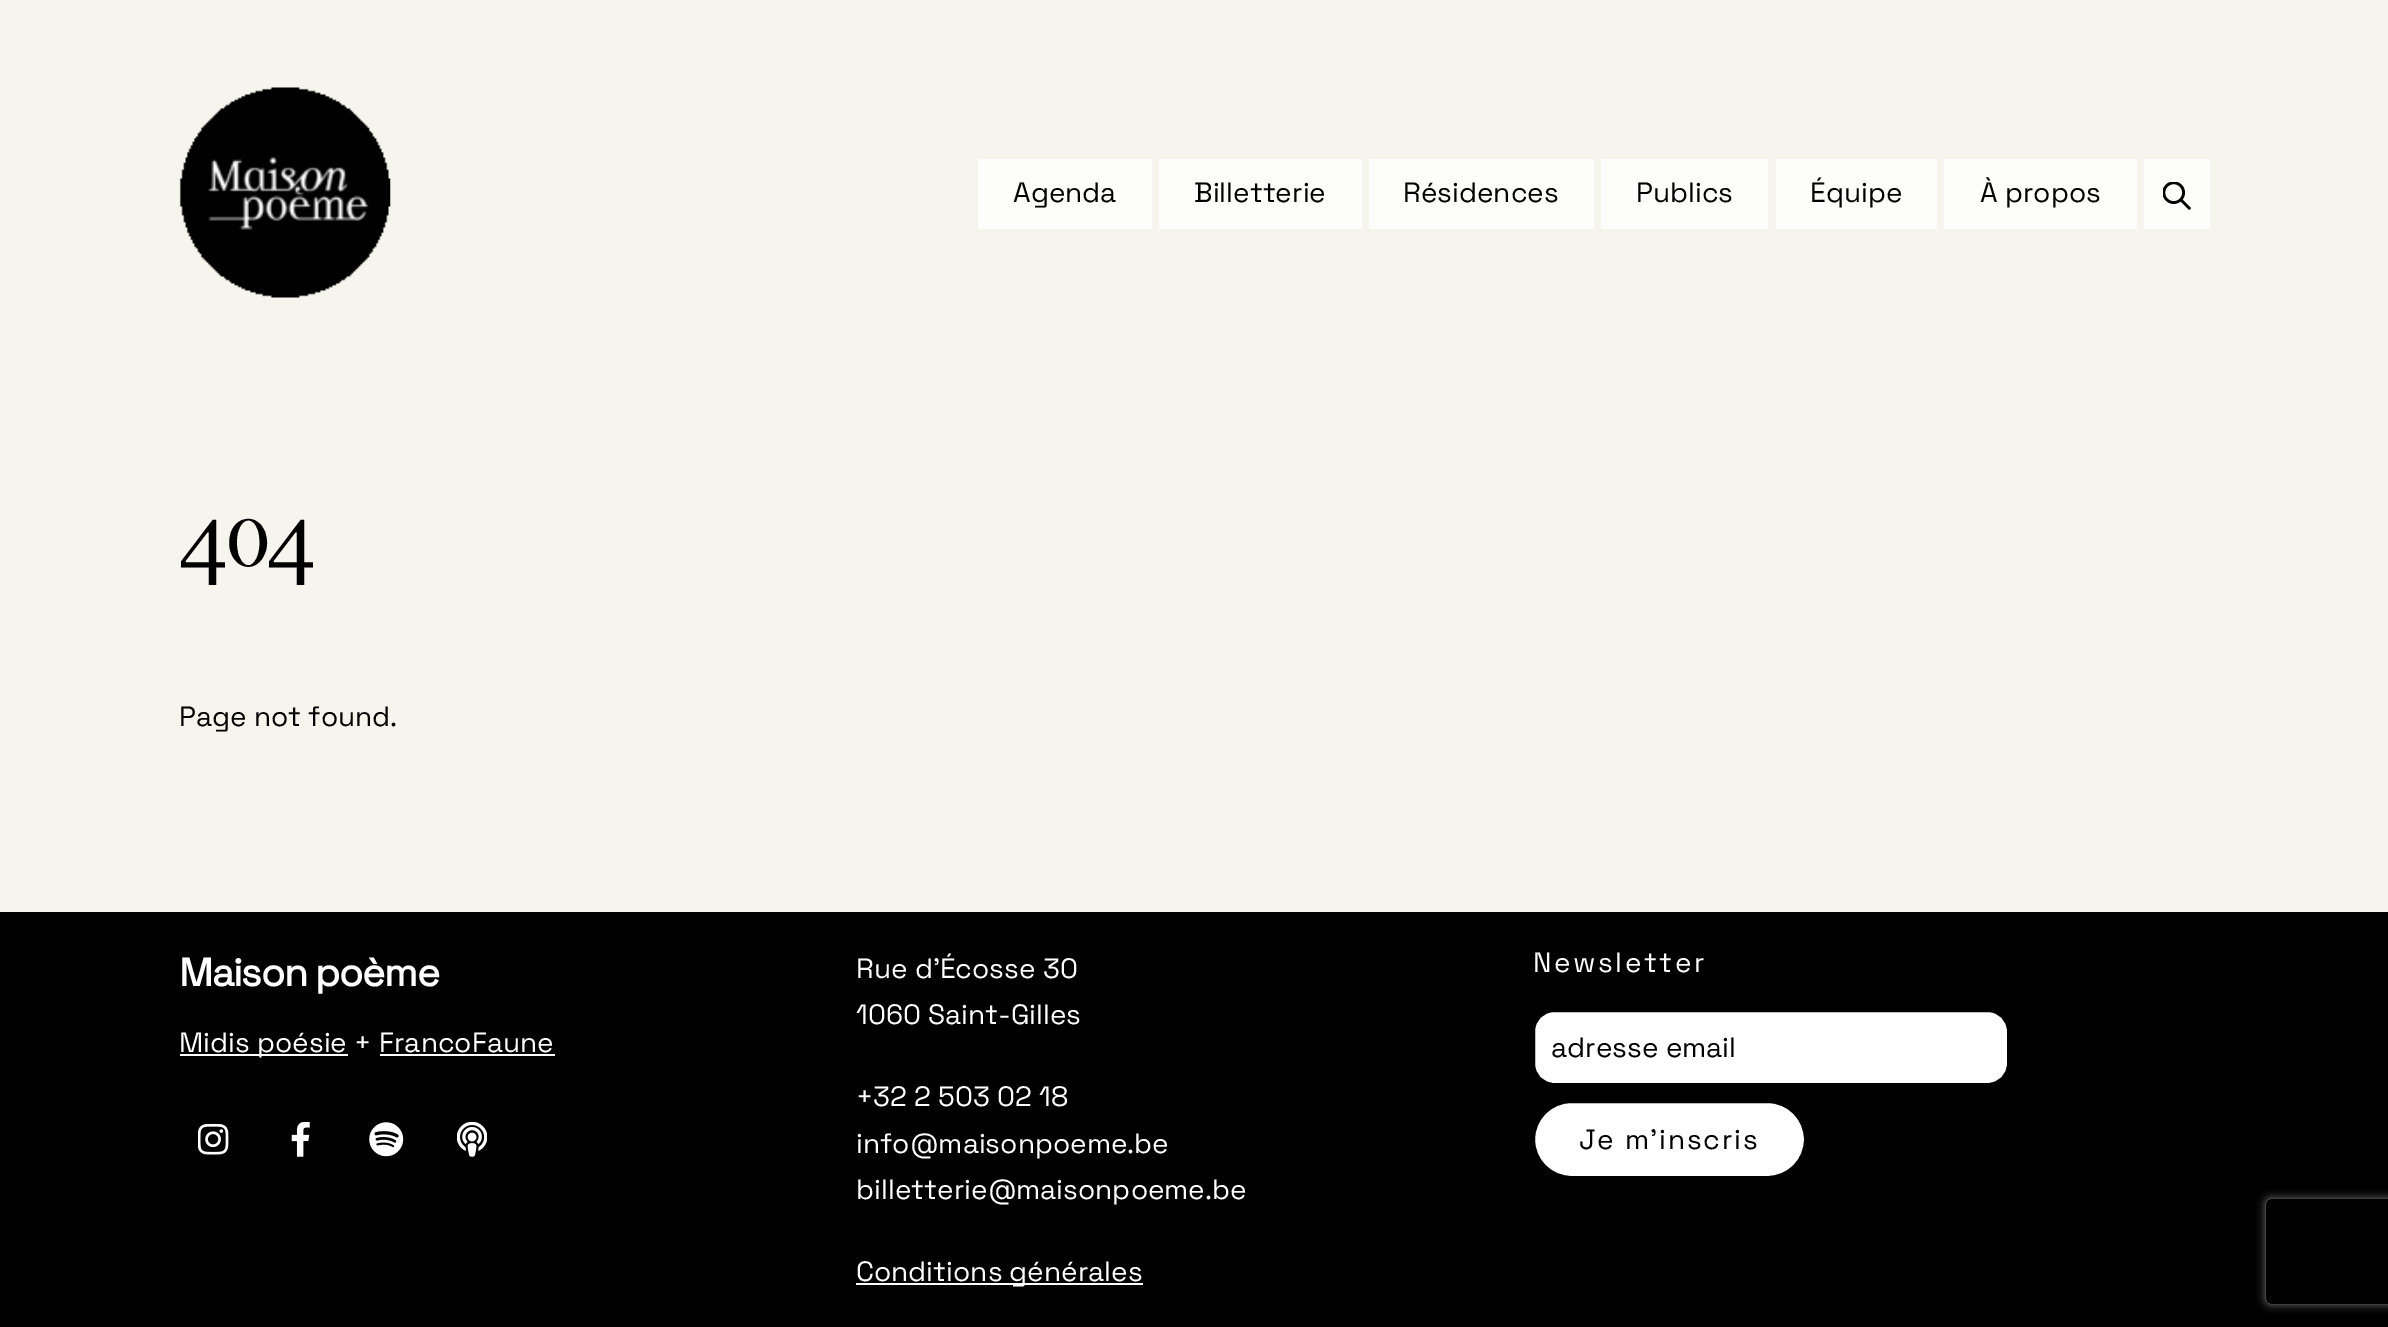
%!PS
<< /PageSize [2388 1327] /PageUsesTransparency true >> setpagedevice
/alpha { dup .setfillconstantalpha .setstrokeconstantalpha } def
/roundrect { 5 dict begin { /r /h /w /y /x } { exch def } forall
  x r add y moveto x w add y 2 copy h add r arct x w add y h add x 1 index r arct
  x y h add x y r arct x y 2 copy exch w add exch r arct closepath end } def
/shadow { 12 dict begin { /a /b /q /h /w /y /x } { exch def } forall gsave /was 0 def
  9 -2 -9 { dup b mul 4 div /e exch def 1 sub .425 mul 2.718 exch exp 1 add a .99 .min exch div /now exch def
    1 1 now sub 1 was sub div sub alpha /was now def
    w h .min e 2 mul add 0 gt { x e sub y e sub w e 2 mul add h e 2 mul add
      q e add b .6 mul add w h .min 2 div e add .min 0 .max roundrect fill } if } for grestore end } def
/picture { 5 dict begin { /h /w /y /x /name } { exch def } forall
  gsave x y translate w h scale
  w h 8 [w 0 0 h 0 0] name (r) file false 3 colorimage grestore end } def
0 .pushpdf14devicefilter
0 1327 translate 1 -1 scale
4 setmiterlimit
0.965 0.961 0.929 setrgbcolor
0 0 2388 1327 rectfill
(img1.rgb) 179 87 212 211 picture
0.992 0.992 0.984 setrgbcolor
978 159 174 70 rectfill
/SpaceGrotesk-Regular [28 0 0 -28 0 0] selectfont
0 setgray
1013 202 moveto (Agenda) show
0.992 0.992 0.984 setrgbcolor
1159 159 203 70 rectfill
0 setgray
1194 202 moveto (Billetterie) show
0.992 0.992 0.984 setrgbcolor
1369 159 225 70 rectfill
0 setgray
1403 202 moveto (Résidences) show
0.992 0.992 0.984 setrgbcolor
1601 159 167 70 rectfill
0 setgray
1636 202 moveto (Publics) show
0.992 0.992 0.984 setrgbcolor
1776 159 161 70 rectfill
0 setgray
1810 202 moveto (Équipe) show
0.992 0.992 0.984 setrgbcolor
1944 159 193 70 rectfill
0 setgray
1980 202 moveto (À propos) show
0.992 0.992 0.984 setrgbcolor
2144 159 66 70 rectfill
(img2.rgb) 2163 182 28 28 picture
/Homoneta-Regular [105 0 0 -105 0 0] selectfont
0 setgray
179 566 moveto -3 0 (404) ashow
/SpaceGrotesk-Regular [28 0 0 -28 0 0] selectfont
179 726 moveto (Page not found.) show
0 912 2388 415 rectfill
/SpaceGrotesk-Bold [39.25 0 0 -39.25 0 0] selectfont
1 setgray
179 986 moveto -1.25 0 (Maison poème) ashow
180 1054 168 2 rectfill
/SpaceGrotesk-Regular [28 0 0 -28 0 0] selectfont
179 1052 moveto (Midis poésie + FrancoFaune) show
380 1054 175 2 rectfill
(img3.rgb) 198 1123 31 32 picture
(img4.rgb) 291 1122 19 35 picture
(img5.rgb) 369 1122 35 35 picture
(img6.rgb) 457 1122 30 35 picture
856 978 moveto (Rue d’Écosse 30) show
856 1024 moveto (1060 Saint-Gilles) show
856 1106 moveto (+32 2 503 02 18) show
856 1153 moveto (info@maisonpoeme.be) show
856 1199 moveto (billetterie@maisonpoeme.be) show
856 1283 287 2 rectfill
856 1281 moveto (Conditions générales) show
1533 972 moveto 2.5 0 (Newsletter) ashow
1534 1011 474 73 20 roundrect gsave fill grestore
0 setgray
2 setlinewidth
stroke
1551 1057 moveto (adresse email) show
1 setgray
1534 1102 271 75 37.5 roundrect gsave fill grestore
0 setgray
stroke
1579 1149 moveto 1.75 0 (Je m'inscris) ashow
gsave
newpath 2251 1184 moveto 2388 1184 lineto 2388 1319 lineto 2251 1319 lineto closepath 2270 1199 moveto 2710 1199 lineto 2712 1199 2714 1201 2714 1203 curveto 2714 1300 lineto 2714 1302 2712 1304 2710 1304 curveto 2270 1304 lineto 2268 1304 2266 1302 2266 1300 curveto 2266 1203 lineto 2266 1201 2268 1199 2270 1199 curveto closepath eoclip newpath
0.502 setgray
2266 1199 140 105 4 4.5 1 shadow
grestore
.poppdf14devicefilter showpage
